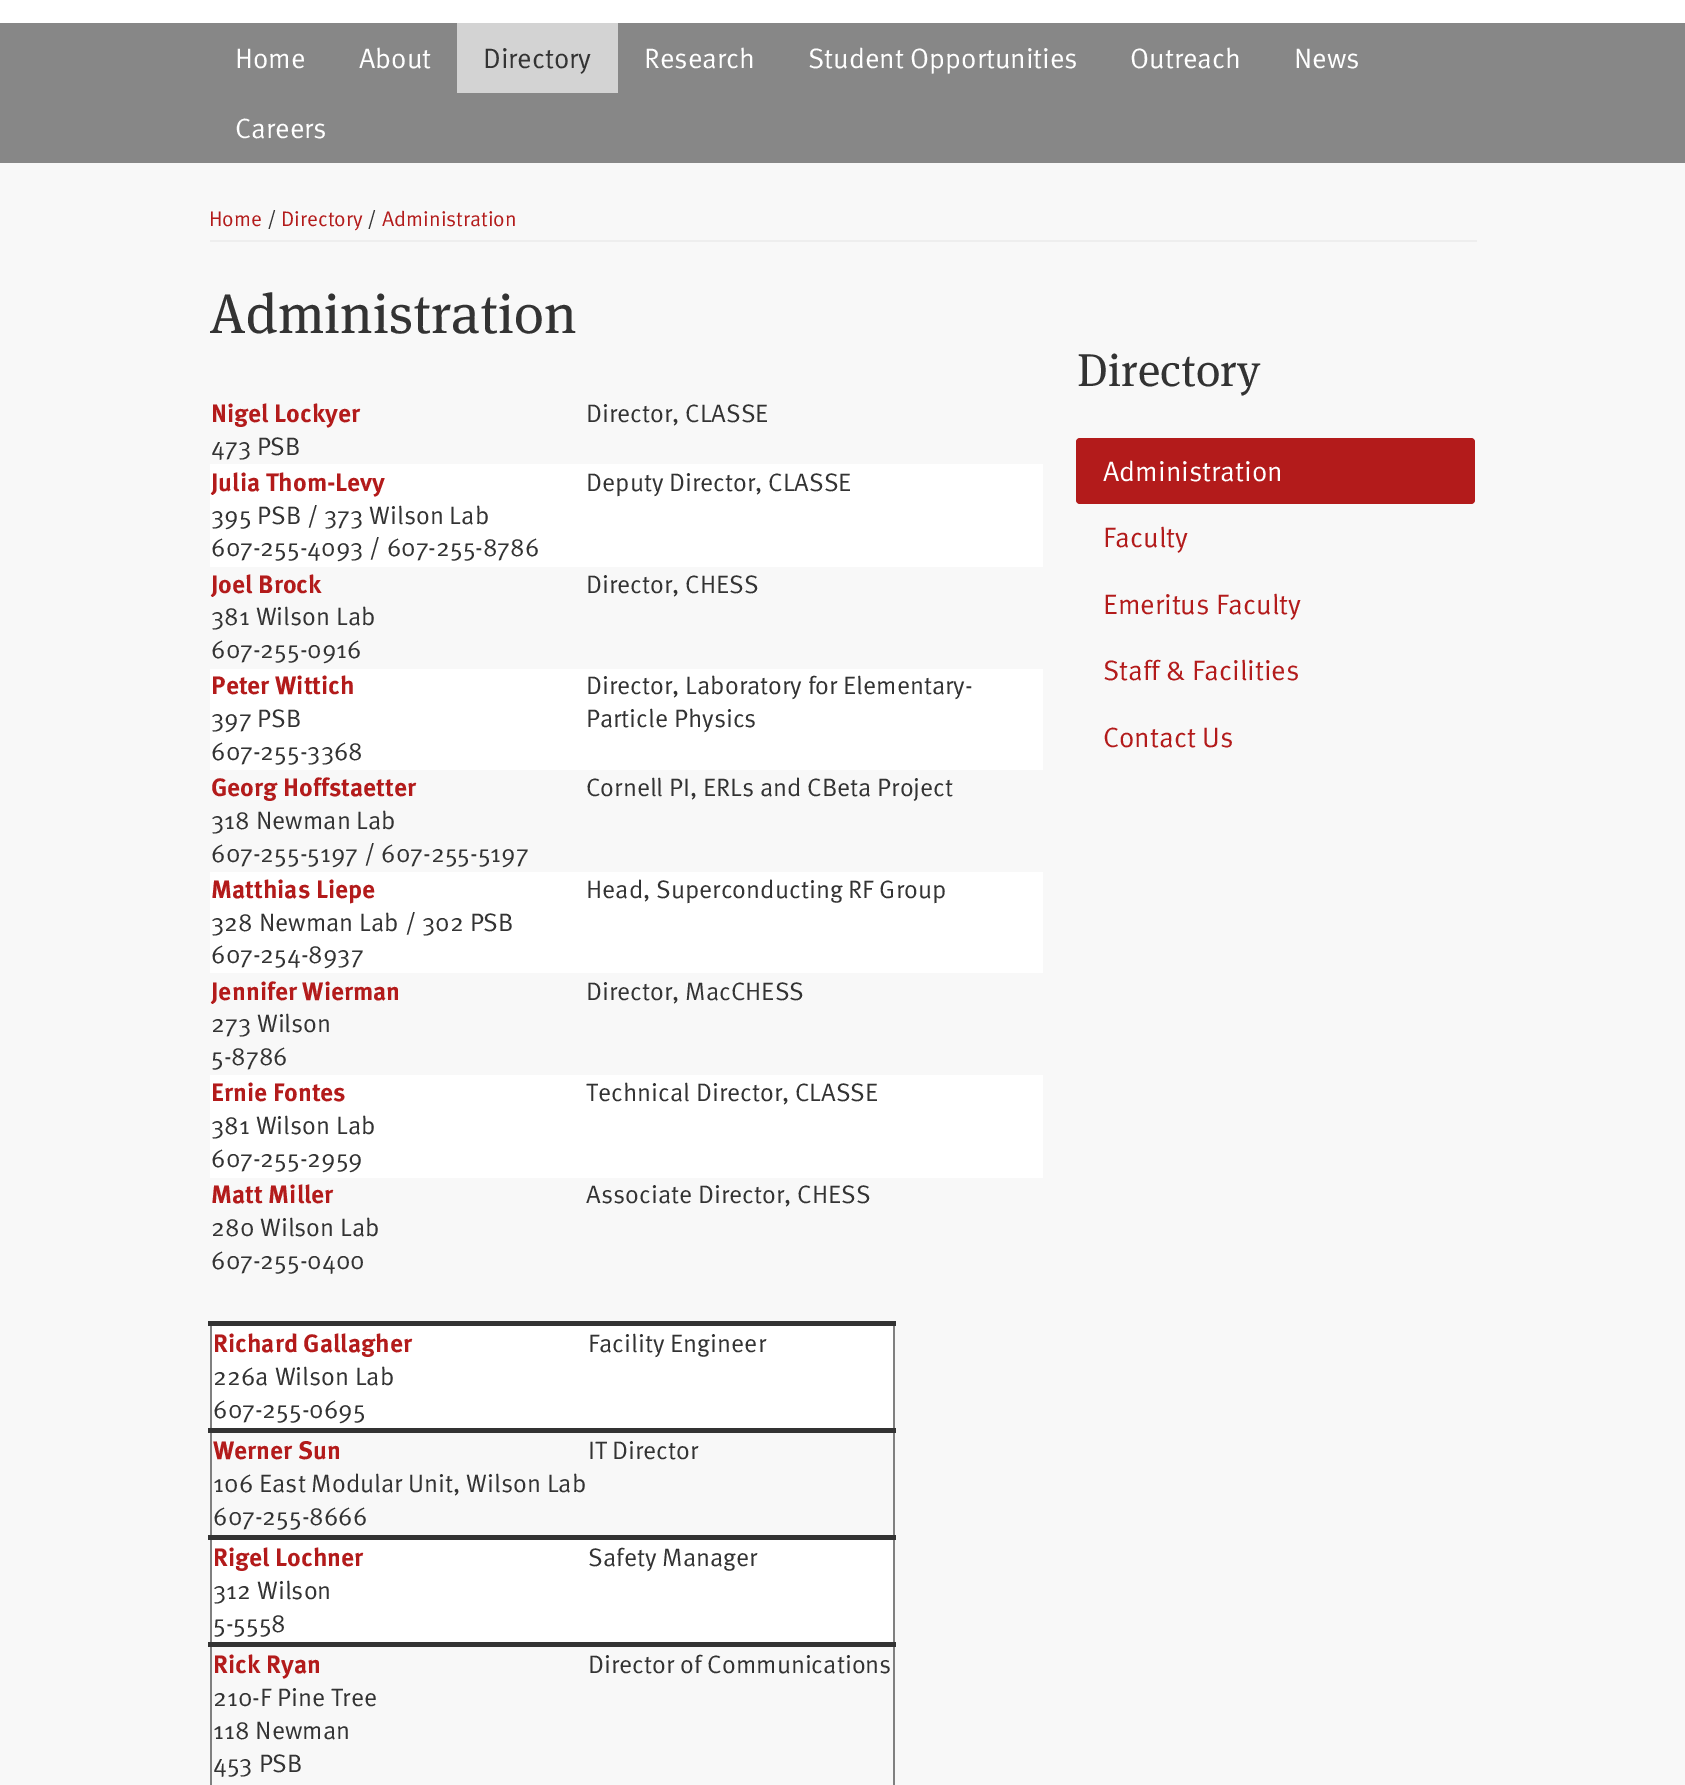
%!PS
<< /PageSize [1685 1785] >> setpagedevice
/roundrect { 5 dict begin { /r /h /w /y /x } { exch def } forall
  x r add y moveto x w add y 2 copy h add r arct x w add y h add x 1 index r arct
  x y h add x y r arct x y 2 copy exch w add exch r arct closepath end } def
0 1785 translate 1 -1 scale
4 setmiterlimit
0.973 setgray
0 0 1685 1785 rectfill
1 setgray
0 0 1685 23 rectfill
0.529 setgray
0 23 1685 140 rectfill
/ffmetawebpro-Regular [28 0 0 -28 0 0] selectfont
1 setgray
235 68 moveto (Home) show
359 68 moveto (About) show
0.827 setgray
457 23 161 70 rectfill
0.2 setgray
483 68 moveto (Directory) show
1 setgray
644 68 moveto (Research) show
808 68 moveto (Student Opportunities) show
1130 68 moveto (Outreach) show
1294 68 moveto (News) show
235 138 moveto (Careers) show
0.933 setgray
210 240 1267 2 rectfill
/ffmetawebpro-Regular [21 0 0 -21 0 0] selectfont
0.702 0.106 0.106 setrgbcolor
209 226 moveto (Home) show
0.2 setgray
267 226 moveto (/) show
0.702 0.106 0.106 setrgbcolor
281 226 moveto (Directory) show
0.2 setgray
367 226 moveto (/) show
0.702 0.106 0.106 setrgbcolor
382 226 moveto (Administration) show
/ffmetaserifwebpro-Medium [56 0 0 -56 0 0] selectfont
0.2 setgray
209 333 moveto (Administration) show
/ffmetawebpro-Bold [25.25 0 0 -25.25 0 0] selectfont
0.702 0.106 0.106 setrgbcolor
211 422 moveto (Nigel Lockyer) show
/ffmetawebpro-Regular [25.25 0 0 -25.25 0 0] selectfont
0.2 setgray
211 455 moveto (473 PSB) show
586 422 moveto (Director, CLASSE) show
1 setgray
210 464 833 103 rectfill
/ffmetawebpro-Bold [25.25 0 0 -25.25 0 0] selectfont
0.702 0.106 0.106 setrgbcolor
211 491 moveto (Julia Thom-Levy) show
/ffmetawebpro-Regular [25.25 0 0 -25.25 0 0] selectfont
0.2 setgray
211 524 moveto (395 PSB / 373 Wilson Lab) show
211 556 moveto (607-255-4093 / 607-255-8786) show
586 491 moveto (Deputy Director, CLASSE) show
/ffmetawebpro-Bold [25.25 0 0 -25.25 0 0] selectfont
0.702 0.106 0.106 setrgbcolor
211 593 moveto (Joel Brock) show
/ffmetawebpro-Regular [25.25 0 0 -25.25 0 0] selectfont
0.2 setgray
211 625 moveto (381 Wilson Lab) show
211 658 moveto (607-255-0916) show
586 593 moveto (Director, CHESS) show
1 setgray
210 669 833 101 rectfill
/ffmetawebpro-Bold [25.25 0 0 -25.25 0 0] selectfont
0.702 0.106 0.106 setrgbcolor
211 694 moveto (Peter Wittich) show
/ffmetawebpro-Regular [25.25 0 0 -25.25 0 0] selectfont
0.2 setgray
211 727 moveto (397 PSB) show
211 760 moveto (607-255-3368) show
586 694 moveto (Director, Laboratory for Elementary-) show
586 727 moveto (Particle Physics) show
/ffmetawebpro-Bold [25.25 0 0 -25.25 0 0] selectfont
0.702 0.106 0.106 setrgbcolor
211 796 moveto (Georg Hoffstaetter) show
/ffmetawebpro-Regular [25.25 0 0 -25.25 0 0] selectfont
0.2 setgray
211 829 moveto (318 Newman Lab) show
211 862 moveto (607-255-5197 / 607-255-5197) show
586 796 moveto (Cornell PI, ERLs and CBeta Project) show
1 setgray
210 872 833 101 rectfill
/ffmetawebpro-Bold [25.25 0 0 -25.25 0 0] selectfont
0.702 0.106 0.106 setrgbcolor
211 898 moveto (Matthias Liepe) show
/ffmetawebpro-Regular [25.25 0 0 -25.25 0 0] selectfont
0.2 setgray
211 931 moveto (328 Newman Lab / 302 PSB) show
211 963 moveto (607-254-8937) show
586 898 moveto (Head, Superconducting RF Group) show
/ffmetawebpro-Bold [25.25 0 0 -25.25 0 0] selectfont
0.702 0.106 0.106 setrgbcolor
211 1000 moveto (Jennifer Wierman) show
/ffmetawebpro-Regular [25.25 0 0 -25.25 0 0] selectfont
0.2 setgray
211 1032 moveto (273 Wilson) show
211 1065 moveto (5-8786) show
586 1000 moveto (Director, MacCHESS) show
1 setgray
210 1075 833 103 rectfill
/ffmetawebpro-Bold [25.25 0 0 -25.25 0 0] selectfont
0.702 0.106 0.106 setrgbcolor
211 1101 moveto (Ernie Fontes) show
/ffmetawebpro-Regular [25.25 0 0 -25.25 0 0] selectfont
0.2 setgray
211 1134 moveto (381 Wilson Lab) show
211 1167 moveto (607-255-2959) show
586 1101 moveto (Technical Director, CLASSE) show
/ffmetawebpro-Bold [25.25 0 0 -25.25 0 0] selectfont
0.702 0.106 0.106 setrgbcolor
211 1203 moveto (Matt Miller) show
/ffmetawebpro-Regular [25.25 0 0 -25.25 0 0] selectfont
0.2 setgray
211 1236 moveto (280 Wilson Lab) show
211 1269 moveto (607-255-0400) show
586 1203 moveto (Associate Director, CHESS) show
0.502 setgray
893 1321 2 464 rectfill
210 1321 2 464 rectfill
1 setgray
212 1326 681 102 rectfill
/ffmetawebpro-Bold [25.25 0 0 -25.25 0 0] selectfont
0.702 0.106 0.106 setrgbcolor
213 1352 moveto (Richard Gallagher) show
/ffmetawebpro-Regular [25.25 0 0 -25.25 0 0] selectfont
0.2 setgray
213 1385 moveto (226a Wilson Lab) show
213 1418 moveto (607-255-0695) show
208 1321 688 5 rectfill
588 1352 moveto (Facility Engineer) show
/ffmetawebpro-Bold [25.25 0 0 -25.25 0 0] selectfont
0.702 0.106 0.106 setrgbcolor
213 1459 moveto (Werner Sun) show
/ffmetawebpro-Regular [25.25 0 0 -25.25 0 0] selectfont
0.2 setgray
213 1492 moveto (106 East Modular Unit, Wilson Lab) show
213 1525 moveto (607-255-8666) show
208 1428 688 5 rectfill
588 1459 moveto (IT Director) show
1 setgray
212 1540 681 102 rectfill
/ffmetawebpro-Bold [25.25 0 0 -25.25 0 0] selectfont
0.702 0.106 0.106 setrgbcolor
213 1566 moveto (Rigel Lochner) show
/ffmetawebpro-Regular [25.25 0 0 -25.25 0 0] selectfont
0.2 setgray
213 1599 moveto (312 Wilson) show
213 1632 moveto (5-5558) show
208 1535 688 5 rectfill
588 1566 moveto (Safety Manager) show
/ffmetawebpro-Bold [25.25 0 0 -25.25 0 0] selectfont
0.702 0.106 0.106 setrgbcolor
213 1673 moveto (Rick Ryan) show
/ffmetawebpro-Regular [25.25 0 0 -25.25 0 0] selectfont
0.2 setgray
213 1706 moveto (210-F Pine Tree) show
213 1739 moveto (118 Newman) show
213 1772 moveto (453 PSB) show
208 1642 688 5 rectfill
588 1673 moveto (Director of Communications) show
/ffmetaserifwebpro-Medium [46 0 0 -46 0 0] selectfont
1077 386 moveto (Directory) show
0.702 0.106 0.106 setrgbcolor
1076 438 399 66 4 roundrect fill
/ffmetawebpro-Regular [28 0 0 -28 0 0] selectfont
1 setgray
1103 481 moveto (Administration) show
0.702 0.106 0.106 setrgbcolor
1103 547 moveto (Faculty) show
1103 614 moveto (Emeritus Faculty) show
1103 680 moveto (Staff & Facilities) show
1103 747 moveto (Contact Us) show
showpage
